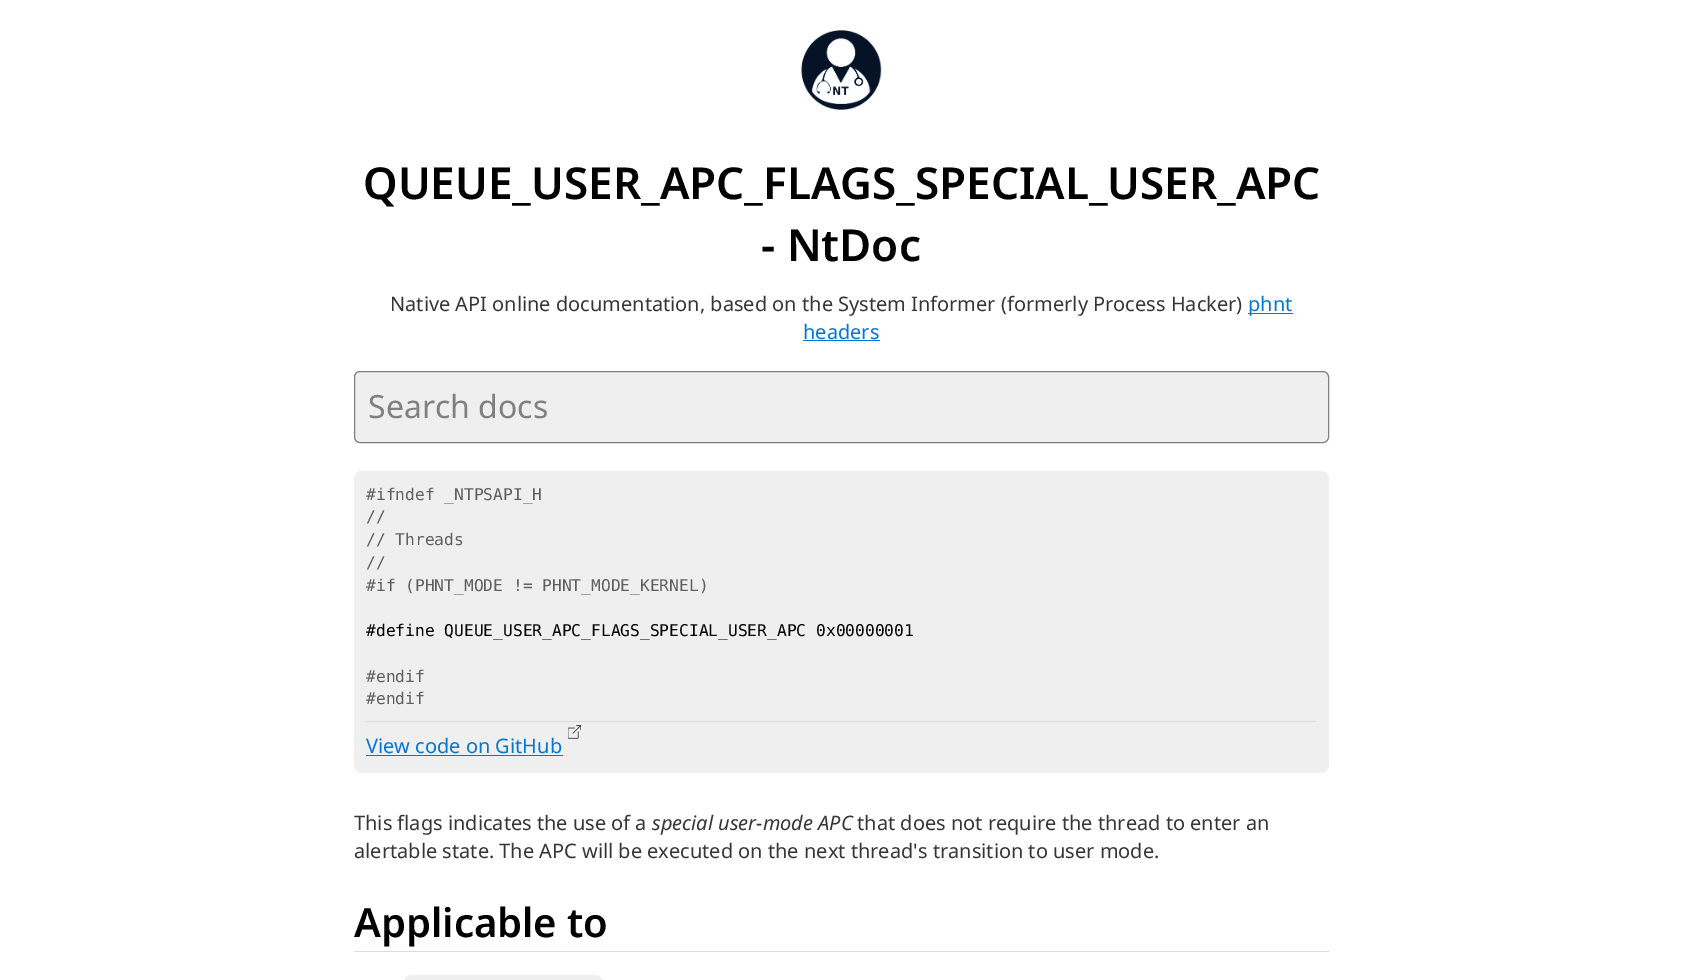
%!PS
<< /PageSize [1682 980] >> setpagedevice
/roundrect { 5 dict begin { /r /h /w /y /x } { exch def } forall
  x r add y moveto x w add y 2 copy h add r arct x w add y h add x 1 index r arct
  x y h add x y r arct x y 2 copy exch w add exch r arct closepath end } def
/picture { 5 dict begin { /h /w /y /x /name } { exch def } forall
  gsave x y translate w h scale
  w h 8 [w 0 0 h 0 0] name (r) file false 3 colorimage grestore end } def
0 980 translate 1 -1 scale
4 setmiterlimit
1 setgray
0 0 1682 980 rectfill
(img1.rgb) 801 30 81 80 picture
/NotoSans-SemiBold [44 0 0 -44 0 0] selectfont
0 setgray
363 199 moveto (QUEUE_USER_APC_FLAGS_SPECIAL_USER_APC) show
761 261 moveto (- NtDoc) show
/NotoSans-Regular [20 0 0 -20 0 0] selectfont
0.212 setgray
390 311 moveto (Native API online documentation, based on the System Informer \(formerly Process Hacker\)) show
0 0.463 0.82 setrgbcolor
1248 313 45 1 rectfill
1248 311 moveto (phnt) show
803 339 moveto (headers) show
803 340 77 1 rectfill
0.937 setgray
354.5 371.5 974 71 5.5 roundrect gsave fill grestore
0.502 setgray
stroke
/NotoSans-Regular [32 0 0 -32 0 0] selectfont
368 418 moveto (Search docs) show
0.937 setgray
354 471 975 302 8 roundrect fill
/DejaVuSansMono-Regular [16.25 0 0 -16.25 0 0] selectfont
0.376 setgray
366 500 moveto (#ifndef _NTPSAPI_H) show
366 522 moveto (//) show
366 545 moveto (// Threads) show
366 568 moveto (//) show
366 591 moveto (#if \(PHNT_MODE != PHNT_MODE_KERNEL\)) show
0 setgray
366 636 moveto (#define QUEUE_USER_APC_FLAGS_SPECIAL_USER_APC 0x00000001) show
0.376 setgray
366 682 moveto (#endif) show
366 704 moveto (#endif) show
0.859 setgray
366 721 950 1 rectfill
(img2.rgb) 568 725 13 14 picture
/NotoSans-Regular [20 0 0 -20 0 0] selectfont
0 0.463 0.82 setrgbcolor
366 753 moveto (View code on GitHub) show
366 755 197 1 rectfill
0.212 setgray
354 830 moveto (This flags indicates the use of a) show
/NotoSans-Italic [20 0 0 -20 0 0] selectfont
652 830 moveto (special user-mode APC) show
/NotoSans-Regular [20 0 0 -20 0 0] selectfont
857 830 moveto (that does not require the thread to enter an) show
354 858 moveto (alertable state. The APC will be executed on the next thread's transition to user mode.) show
0.859 setgray
354 951 975 1 rectfill
/NotoSans-SemiBold [40 0 0 -40 0 0] selectfont
0 setgray
354 937 moveto (Applicable to) show
0.937 setgray
404 975 199 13 8 roundrect fill
showpage
